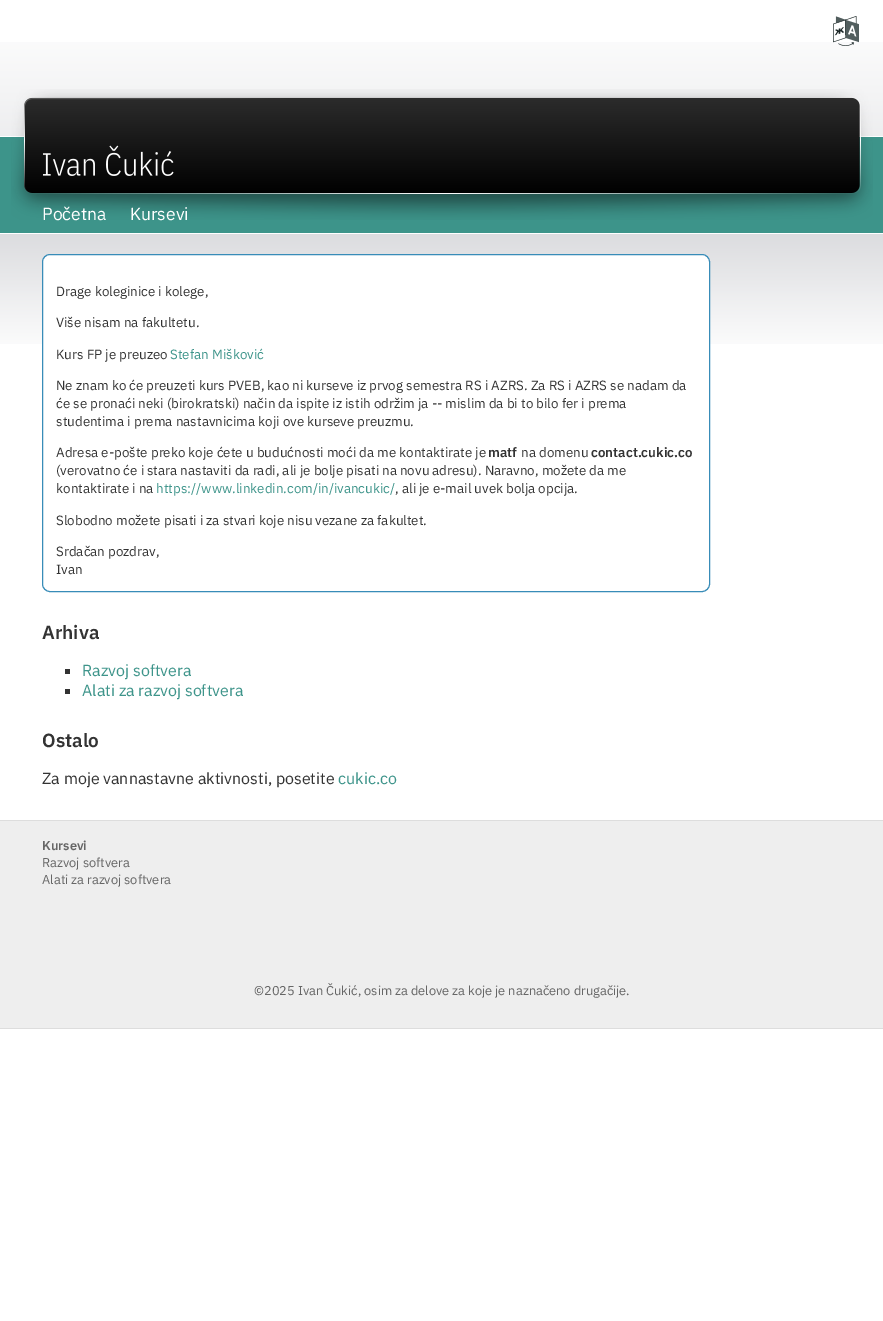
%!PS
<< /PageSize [883 1321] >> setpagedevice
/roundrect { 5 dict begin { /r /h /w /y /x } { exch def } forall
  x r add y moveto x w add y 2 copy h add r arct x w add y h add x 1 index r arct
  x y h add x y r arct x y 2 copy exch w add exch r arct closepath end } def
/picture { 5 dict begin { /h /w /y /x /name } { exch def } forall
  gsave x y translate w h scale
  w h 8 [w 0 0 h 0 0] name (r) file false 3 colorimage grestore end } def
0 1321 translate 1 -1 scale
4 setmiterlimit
1 setgray
0 0 883 1321 rectfill
(img1.rgb) 0 42 883 302 picture
(img2.rgb) 11 89 862 131 picture
(img3.rgb) 833 16 26 30 picture
/IBMPlexSans-Regular [17.5 0 0 -17.5 0 0] selectfont
42 220 moveto (Početna) show
130 220 moveto (Kursevi) show
42.5 254.5 667 337 7.5 roundrect gsave fill grestore
0.22 0.549 0.722 setrgbcolor
stroke
/IBMPlexSans-Regular [13.35 0 0 -13.35 0 0] selectfont
0.2 setgray
56 296 moveto (Drage koleginice i kolege,) show
56 327 moveto (Više nisam na fakultetu.) show
56 359 moveto (Kurs FP je preuzeo) show
0.239 0.58 0.541 setrgbcolor
170 359 moveto (Stefan Mišković) show
0.2 setgray
56 390 moveto (Ne znam ko će preuzeti kurs PVEB, kao ni kurseve iz prvog semestra RS i AZRS. Za RS i AZRS se nadam da) show
56 408 moveto (će se pronaći neki \(birokratski\) način da ispite iz istih održim ja -- mislim da bi to bilo fer i prema) show
56 426 moveto (studentima i prema nastavnicima koji ove kurseve preuzmu.) show
56 457 moveto (Adresa e-pošte preko koje ćete u budućnosti moći da me kontaktirate je) show
/IBMPlexSans-SemiBold [13.35 0 0 -13.35 0 0] selectfont
488 457 moveto (matf) show
/IBMPlexSans-Regular [13.35 0 0 -13.35 0 0] selectfont
521 457 moveto (na domenu) show
/IBMPlexSans-SemiBold [13.35 0 0 -13.35 0 0] selectfont
591 457 moveto (contact.cukic.co) show
/IBMPlexSans-Regular [13.35 0 0 -13.35 0 0] selectfont
56 475 moveto (\(verovatno će i stara nastaviti da radi, ali je bolje pisati na novu adresu\). Naravno, možete da me) show
56 493 moveto (kontaktirate i na) show
0.239 0.58 0.541 setrgbcolor
156 493 moveto (https://www.linkedin.com/in/ivancukic/) show
0.2 setgray
395 493 moveto (, ali je e-mail uvek bolja opcija.) show
56 525 moveto (Slobodno možete pisati i za stvari koje nisu vezane za fakultet.) show
56 556 moveto (Srdačan pozdrav,) show
56 574 moveto (Ivan) show
/IBMPlexSans-SemiBold [19 0 0 -19 0 0] selectfont
42 639 moveto (Arhiva) show
65 669 5 5 rectfill
/IBMPlexSans-Regular [16 0 0 -16 0 0] selectfont
0.239 0.58 0.541 setrgbcolor
82 676 moveto (Razvoj softvera) show
0.2 setgray
65 689 5 5 rectfill
0.239 0.58 0.541 setrgbcolor
82 696 moveto (Alati za razvoj softvera) show
/IBMPlexSans-SemiBold [19 0 0 -19 0 0] selectfont
0.2 setgray
42 747 moveto (Ostalo) show
/IBMPlexSans-Regular [16 0 0 -16 0 0] selectfont
42 784 moveto (Za moje vannastavne aktivnosti, posetite) show
0.239 0.58 0.541 setrgbcolor
338 784 moveto (cukic.co) show
0.933 setgray
0 821 883 207 rectfill
0.867 setgray
0 820 883 1 rectfill
0 1028 883 1 rectfill
/IBMPlexSans-SemiBold [12.8 0 0 -12.8 0 0] selectfont
0.4 setgray
42 850 moveto (Kursevi) show
/IBMPlexSans-Regular [12.8 0 0 -12.8 0 0] selectfont
42 867 moveto (Razvoj softvera) show
42 884 moveto (Alati za razvoj softvera) show
254 995 moveto (©2025 Ivan Čukić, osim za delove za koje je naznačeno drugačije.) show
showpage
